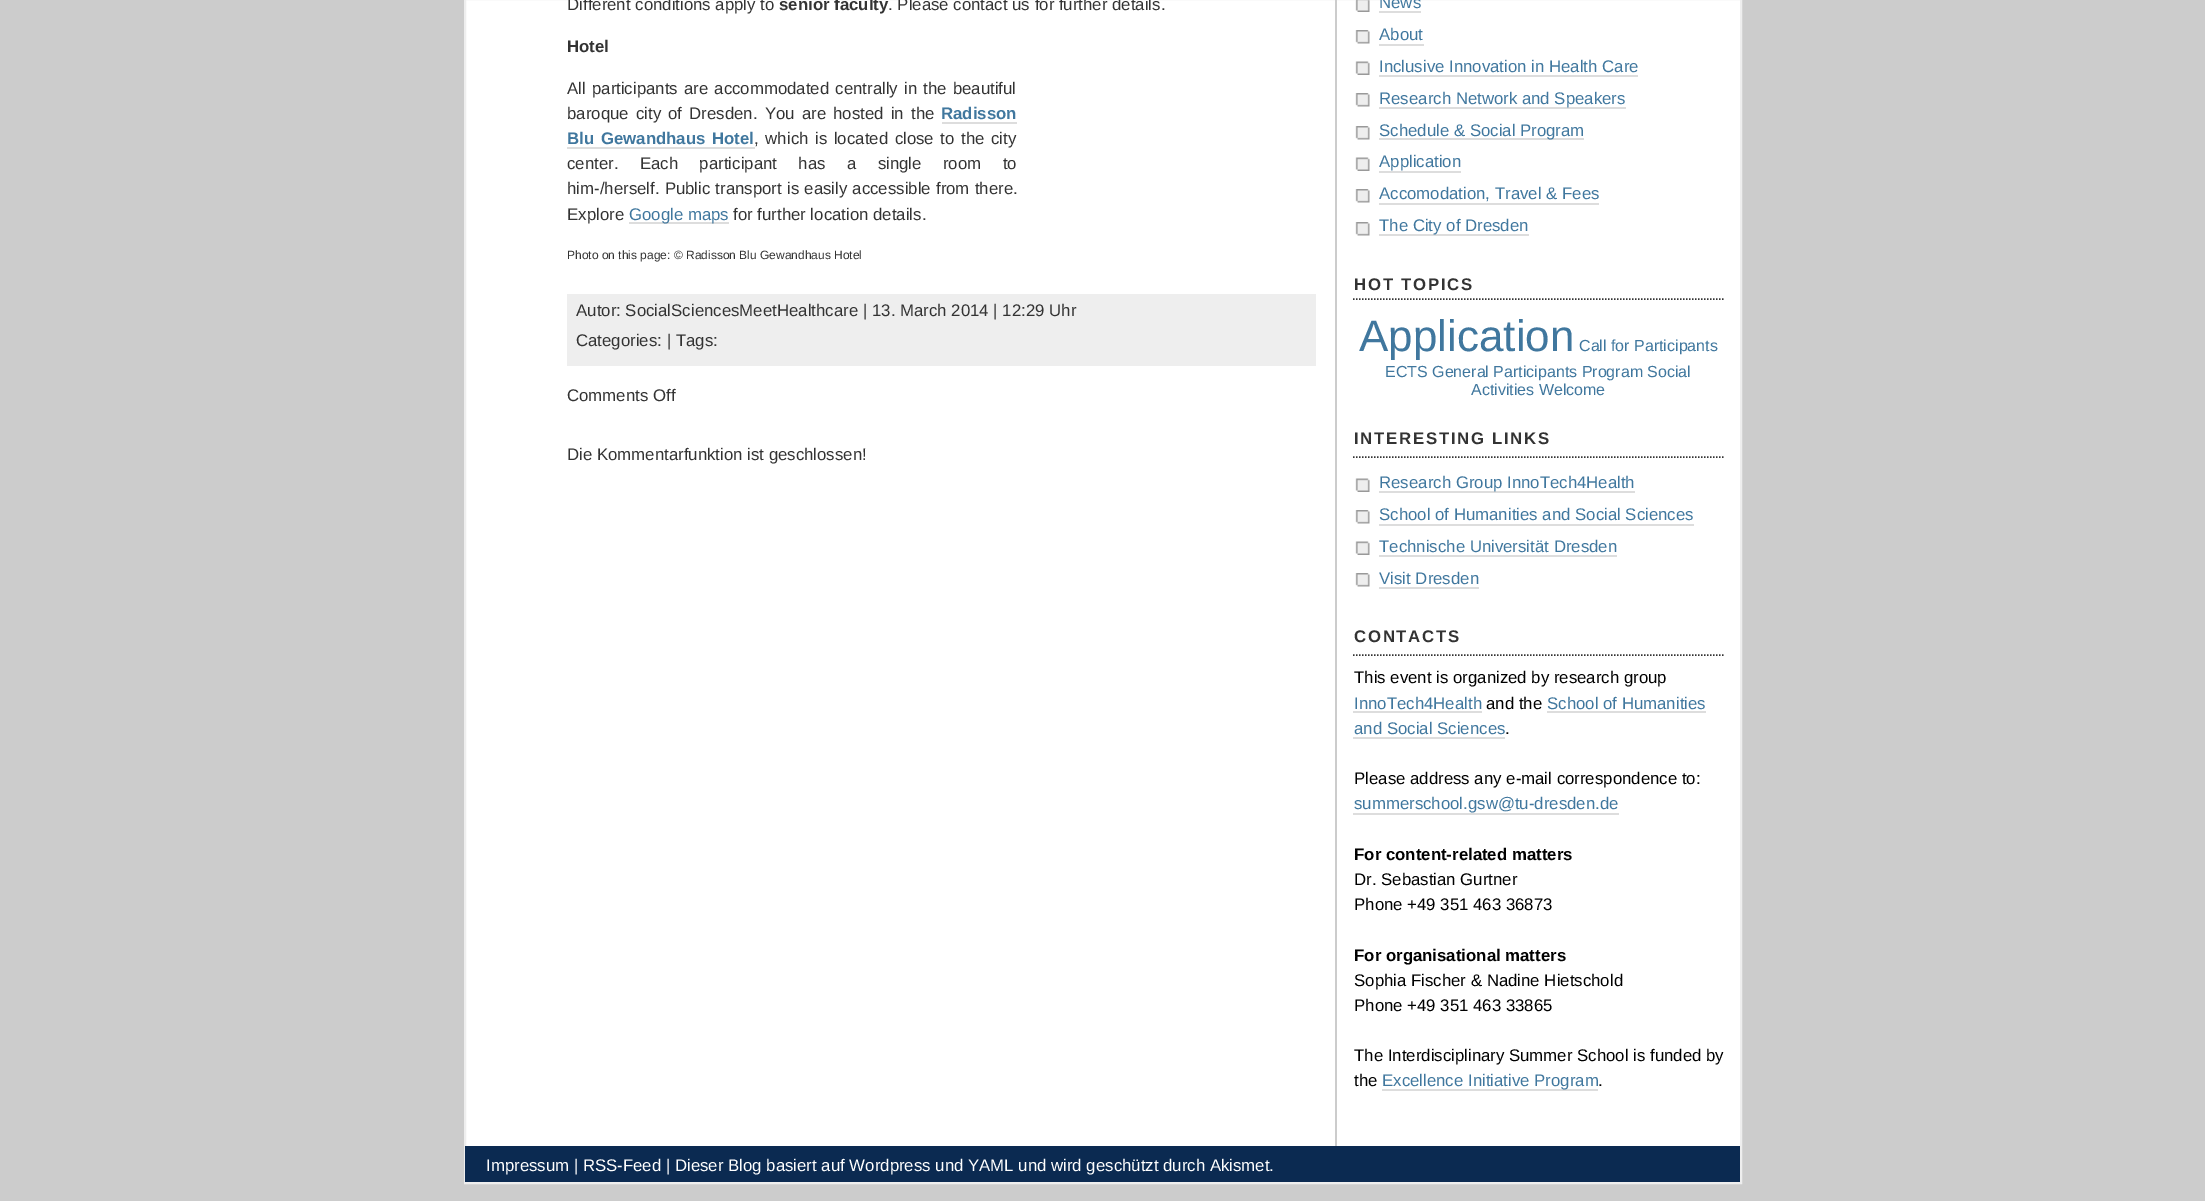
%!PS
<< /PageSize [2205 1201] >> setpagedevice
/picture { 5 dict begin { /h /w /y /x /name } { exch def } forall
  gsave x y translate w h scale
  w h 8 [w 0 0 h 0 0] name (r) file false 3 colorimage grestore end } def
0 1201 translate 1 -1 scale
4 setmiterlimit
0.8 setgray
0 0 2205 1201 rectfill
1 setgray
466 0 1274 1146 rectfill
0.933 setgray
2 setlinewidth
465 -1 1276 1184 rectstroke
0.8 setgray
1335 0 2 1146 rectfill
/LiberationSans-Regular [16.8 0 0 -16.8 0 0] selectfont
0.2 setgray
567 10 moveto (Different conditions apply to) show
/LiberationSans-Bold [16.8 0 0 -16.8 0 0] selectfont
779 10 moveto (senior faculty) show
/LiberationSans-Regular [16.8 0 0 -16.8 0 0] selectfont
888 10 moveto (. Please contact us for further details.) show
/LiberationSans-Bold [16.8 0 0 -16.8 0 0] selectfont
567 52 moveto (Hotel) show
/LiberationSans-Regular [16.8 0 0 -16.8 0 0] selectfont
567 94 moveto 1.5 0 32 (All participants are accommodated centrally in the beautiful) widthshow
567 119 moveto 2.5 0 32 (baroque city of Dresden. You are hosted in the) widthshow
/LiberationSans-Bold [16.8 0 0 -16.8 0 0] selectfont
0.251 0.467 0.62 setrgbcolor
941 119 moveto (Radisson) show
0.867 setgray
942 122 75 2 rectfill
0.251 0.467 0.62 setrgbcolor
567 144 moveto 2 0 32 (Blu Gewandhaus Hotel) widthshow
0.867 setgray
567 147 188 2 rectfill
/LiberationSans-Regular [16.8 0 0 -16.8 0 0] selectfont
0.2 setgray
754 144 moveto 2 0 32 (, which is located close to the city) widthshow
567 169 moveto 16.75 0 32 (center. Each participant has a single room to) widthshow
567 194 moveto 0.5 0 32 (him-/herself. Public transport is easily accessible from there.) widthshow
567 220 moveto (Explore) show
0.867 setgray
629 222 100 2 rectfill
0.251 0.467 0.62 setrgbcolor
629 220 moveto (Google maps) show
0.2 setgray
733 220 moveto (for further location details.) show
/LiberationSans-Regular [12 0 0 -12 0 0] selectfont
567 259 moveto (Photo on this page: © Radisson Blu Gewandhaus Hotel) show
0.933 setgray
567 294 749 72 rectfill
/LiberationSans-Regular [16.8 0 0 -16.8 0 0] selectfont
0.2 setgray
576 316 moveto (Autor: SocialSciencesMeetHealthcare |) show
872 316 moveto (13. March 2014 | 12:29 Uhr) show
576 346 moveto (Categories: | Tags:) show
567 401 moveto (Comments Off) show
567 460 moveto (Die Kommentarfunktion ist geschlossen!) show
(img1.rgb) 1355 0 15 12 picture
0.251 0.467 0.62 setrgbcolor
1379 8 moveto (News) show
0.867 setgray
1379 11 42 2 rectfill
(img2.rgb) 1355 30 15 14 picture
0.251 0.467 0.62 setrgbcolor
1379 40 moveto (About) show
0.867 setgray
1379 44 45 2 rectfill
(img3.rgb) 1355 61 15 14 picture
0.251 0.467 0.62 setrgbcolor
1379 72 moveto (Inclusive Innovation in Health Care) show
0.867 setgray
1379 75 259 2 rectfill
(img2.rgb) 1355 93 15 14 picture
1379 107 247 2 rectfill
0.251 0.467 0.62 setrgbcolor
1379 104 moveto (Research Network and Speakers) show
(img2.rgb) 1355 126 15 14 picture
0.867 setgray
1379 138 205 2 rectfill
0.251 0.467 0.62 setrgbcolor
1379 136 moveto (Schedule & Social Program) show
(img3.rgb) 1355 157 15 14 picture
1379 167 moveto (Application) show
0.867 setgray
1379 171 82 2 rectfill
(img2.rgb) 1355 189 15 14 picture
0.251 0.467 0.62 setrgbcolor
1379 199 moveto (Accomodation, Travel & Fees) show
0.867 setgray
1379 203 220 2 rectfill
(img2.rgb) 1355 222 15 14 picture
1379 234 150 2 rectfill
0.251 0.467 0.62 setrgbcolor
1379 231 moveto (The City of Dresden) show
0.2 setgray
1.5 setlinewidth
[1.5 1.5] 0 setdash
newpath 1353 299 moveto 1723.5 299 lineto stroke
/LiberationSans-Bold [16.8 0 0 -16.8 0 0] selectfont
1354 290 moveto 1.7 0 (HOT TOPICS) ashow
/LiberationSans-Regular [44 0 0 -44 0 0] selectfont
0.251 0.467 0.62 setrgbcolor
1359 351 moveto (Application) show
/LiberationSans-Regular [16 0 0 -16 0 0] selectfont
1579 351 moveto (Call for Participants) show
1385 377 moveto (ECTS General Participants Program Social) show
1471 395 moveto (Activities Welcome) show
0.2 setgray
newpath 1353 457 moveto 1723.5 457 lineto stroke
/LiberationSans-Bold [16.8 0 0 -16.8 0 0] selectfont
1354 444 moveto 1.7 0 (INTERESTING LINKS) ashow
(img3.rgb) 1355 478 15 14 picture
0.867 setgray
1379 491 256 2 rectfill
/LiberationSans-Regular [16.8 0 0 -16.8 0 0] selectfont
0.251 0.467 0.62 setrgbcolor
1379 488 moveto (Research Group InnoTech4Health) show
(img2.rgb) 1355 510 15 14 picture
1379 520 moveto (School of Humanities and Social Sciences) show
0.867 setgray
1379 524 315 2 rectfill
(img3.rgb) 1355 541 15 14 picture
0.251 0.467 0.62 setrgbcolor
1379 552 moveto (Technische Universität Dresden) show
0.867 setgray
1379 555 238 2 rectfill
(img2.rgb) 1355 573 15 14 picture
0.251 0.467 0.62 setrgbcolor
1379 584 moveto (Visit Dresden) show
0.867 setgray
1379 587 100 2 rectfill
0.2 setgray
newpath 1353 655 moveto 1723.5 655 lineto stroke
/LiberationSans-Bold [16.8 0 0 -16.8 0 0] selectfont
1354 642 moveto 1.7 0 (CONTACTS) ashow
/LiberationSans-Regular [16.8 0 0 -16.8 0 0] selectfont
0 setgray
1354 683 moveto (This event is organized by research group) show
0.251 0.467 0.62 setrgbcolor
1354 709 moveto (InnoTech4Health) show
0.867 setgray
1353 711 129 2 rectfill
0 setgray
1486 709 moveto (and the) show
0.251 0.467 0.62 setrgbcolor
1547 709 moveto (School of Humanities) show
0.867 setgray
1547 711 159 2 rectfill
0.251 0.467 0.62 setrgbcolor
1354 734 moveto (and Social Sciences) show
0.867 setgray
1353 737 152 2 rectfill
0 setgray
1505 734 moveto (.) show
1354 784 moveto (Please address any e-mail correspondence to:) show
0.251 0.467 0.62 setrgbcolor
1354 809 moveto (summerschool.gsw@tu-dresden.de) show
0.867 setgray
1353 813 266 2 rectfill
/LiberationSans-Bold [16.8 0 0 -16.8 0 0] selectfont
0 setgray
1354 860 moveto (For content-related matters) show
/LiberationSans-Regular [16.8 0 0 -16.8 0 0] selectfont
1354 885 moveto (Dr. Sebastian Gurtner) show
1354 910 moveto (Phone +49 351 463 36873) show
/LiberationSans-Bold [16.8 0 0 -16.8 0 0] selectfont
1354 961 moveto (For organisational matters) show
/LiberationSans-Regular [16.8 0 0 -16.8 0 0] selectfont
1354 986 moveto (Sophia Fischer & Nadine Hietschold) show
1354 1011 moveto (Phone +49 351 463 33865) show
1354 1061 moveto (The Interdisciplinary Summer School is funded by) show
1354 1086 moveto (the) show
0.867 setgray
1382 1089 216 2 rectfill
0.251 0.467 0.62 setrgbcolor
1382 1086 moveto (Excellence Initiative Program) show
0 setgray
1598 1086 moveto (.) show
0.043 0.165 0.318 setrgbcolor
465 1146 1275 36 rectfill
1 setgray
486 1171 moveto (Impressum | RSS-Feed | Dieser Blog basiert auf Wordpress und YAML und wird geschützt durch Akismet.) show
showpage
